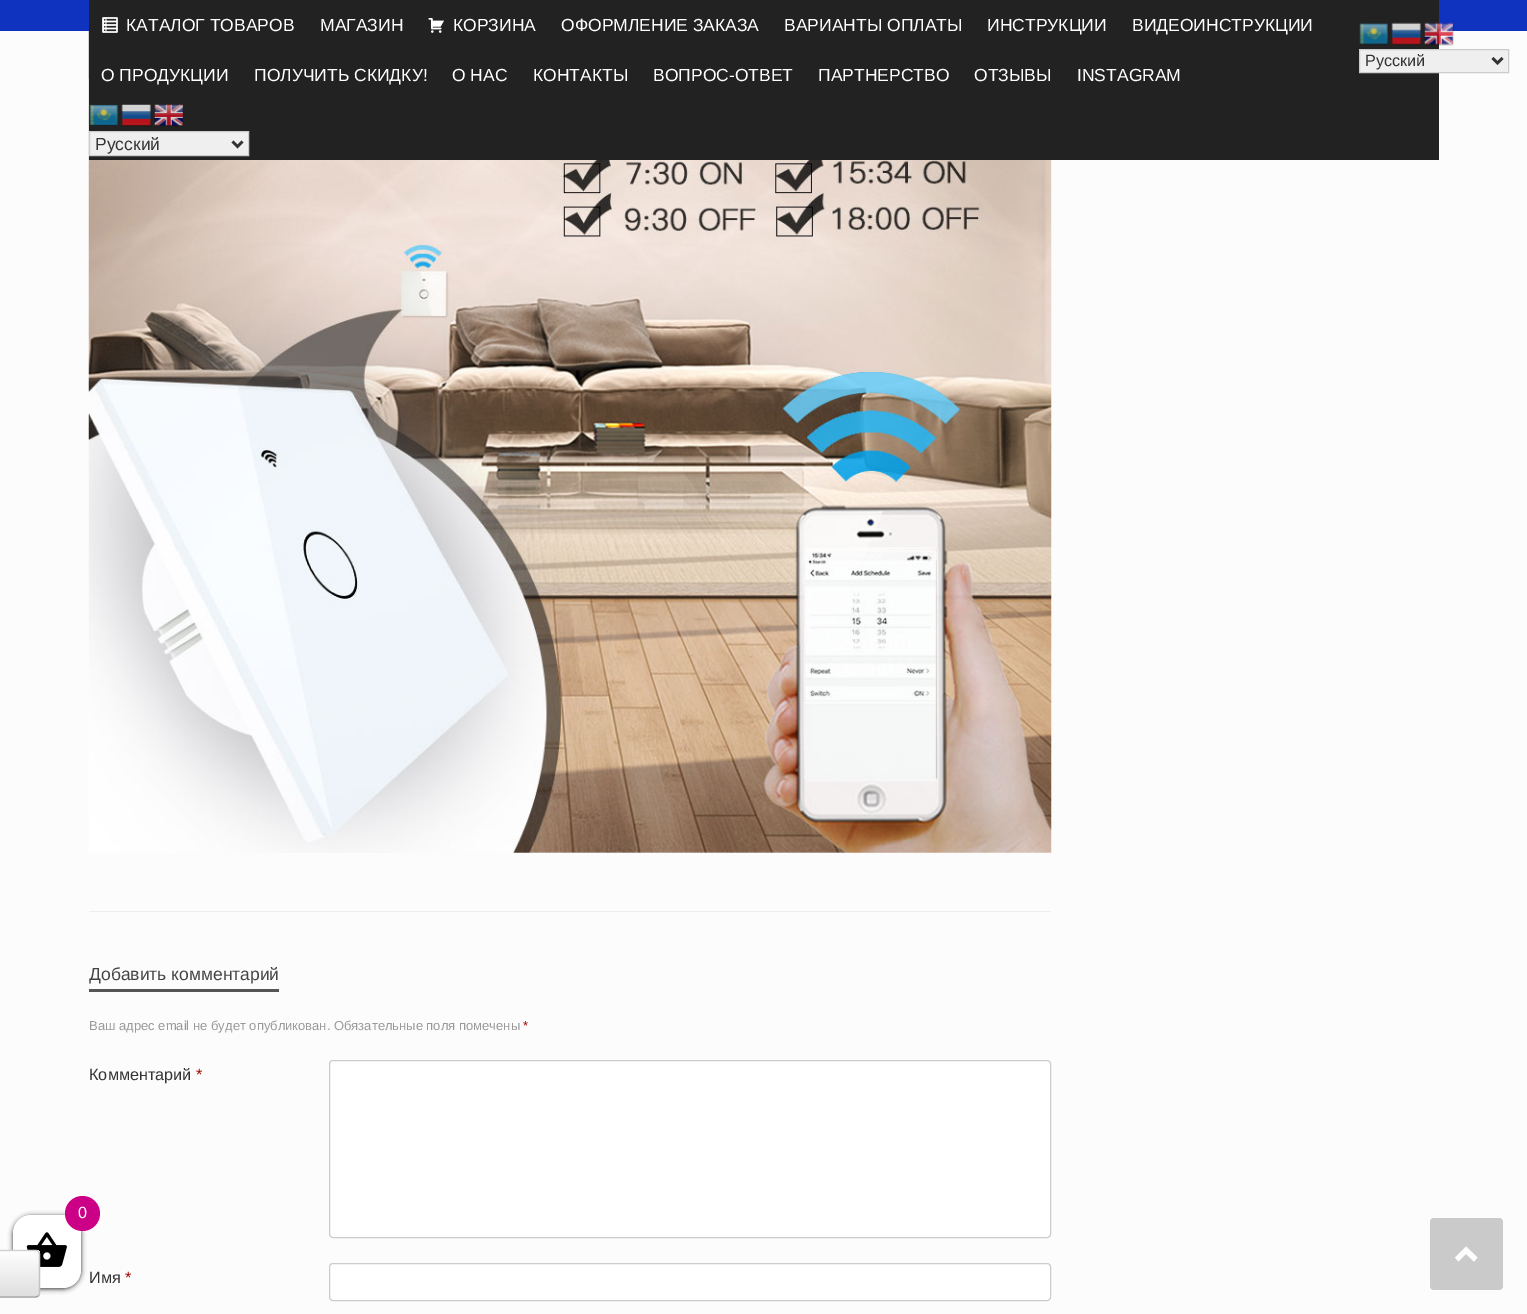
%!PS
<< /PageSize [1527 1314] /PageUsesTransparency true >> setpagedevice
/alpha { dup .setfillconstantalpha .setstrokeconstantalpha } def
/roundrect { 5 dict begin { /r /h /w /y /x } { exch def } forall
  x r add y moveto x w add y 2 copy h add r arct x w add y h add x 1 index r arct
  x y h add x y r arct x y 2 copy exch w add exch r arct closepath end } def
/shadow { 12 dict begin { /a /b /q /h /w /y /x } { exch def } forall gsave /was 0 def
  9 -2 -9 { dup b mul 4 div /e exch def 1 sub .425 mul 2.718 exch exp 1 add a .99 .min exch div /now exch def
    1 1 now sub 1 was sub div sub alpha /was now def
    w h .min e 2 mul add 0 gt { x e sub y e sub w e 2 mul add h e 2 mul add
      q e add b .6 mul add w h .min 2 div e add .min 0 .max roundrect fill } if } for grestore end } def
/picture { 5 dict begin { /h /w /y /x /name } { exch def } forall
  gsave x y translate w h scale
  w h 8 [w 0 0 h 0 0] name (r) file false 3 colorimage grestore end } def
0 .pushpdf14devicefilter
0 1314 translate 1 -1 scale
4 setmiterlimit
0.988 setgray
0 0 1527 1314 rectfill
0.059 0.196 0.749 setrgbcolor
0 0 1527 31 rectfill
(img6.rgb) 88 31 964 822 picture
0.133 setgray
89 0 1350 160 rectfill
(img1.rgb) 102 17 16 16 picture
/LiberationSans-Regular [17.5 0 0 -17.5 0 0] selectfont
1 setgray
126 31 moveto (КАТАЛОГ ТОВАРОВ) show
320 31 moveto (МАГАЗИН) show
(img2.rgb) 428 18 16 15 picture
453 31 moveto (КОРЗИНА) show
561 31 moveto (ОФОРМЛЕНИЕ ЗАКАЗА) show
784 31 moveto (ВАРИАНТЫ ОПЛАТЫ) show
987 31 moveto (ИНСТРУКЦИИ) show
1132 31 moveto (ВИДЕОИНСТРУКЦИИ) show
101 81 moveto (О ПРОДУКЦИИ) show
254 81 moveto (ПОЛУЧИТЬ СКИДКУ!) show
452 81 moveto (О НАС) show
533 81 moveto (КОНТАКТЫ) show
653 81 moveto (ВОПРОС-ОТВЕТ) show
818 81 moveto (ПАРТНЕРСТВО) show
974 81 moveto (ОТЗЫВЫ) show
1077 81 moveto (INSTAGRAM) show
(img3.rgb) 88 104 30 22 picture
(img4.rgb) 121 104 30 23 picture
(img5.rgb) 154 104 30 23 picture
0.937 setgray
newpath 89.5 131.5 moveto 248.5 131.5 lineto 248.5 155.5 lineto 89.5 155.5 lineto closepath gsave fill grestore
0.8 setgray
stroke
0.2 setgray
2.5 setlinewidth
newpath 232.5 141.5 moveto 237.5 146.5 lineto 242.5 141.5 lineto stroke
95 150 moveto (Русский) show
0.933 setgray
89 911 962 1 rectfill
0.333 setgray
89 989 190 3 rectfill
0.267 setgray
89 980 moveto (Добавить комментарий) show
/LiberationSans-Regular [13 0 0 -13 0 0] selectfont
0.6 setgray
89 1030 moveto (Ваш адрес email не будет опубликован. Обязательные поля помечены) show
0.643 0.031 0.008 setrgbcolor
523 1030 moveto (*) show
/LiberationSans-Regular [16.25 0 0 -16.25 0 0] selectfont
0.2 setgray
89 1080 moveto (Комментарий) show
0.643 0.031 0.008 setrgbcolor
196 1080 moveto (*) show
1 setgray
329.5 1060.5 721 177 3.5 roundrect gsave fill grestore
0.8 setgray
1 setlinewidth
stroke
0.2 setgray
89 1283 moveto (Имя) show
0.643 0.031 0.008 setrgbcolor
125 1283 moveto (*) show
1 setgray
329.5 1263.5 721 37 3.5 roundrect gsave fill grestore
0.8 setgray
stroke
(img7.rgb) 1359 23 29 22 picture
(img8.rgb) 1391 22 30 23 picture
(img9.rgb) 1424 22 30 24 picture
0.937 setgray
newpath 1359.5 49.5 moveto 1508.5 49.5 lineto 1508.5 72.5 lineto 1359.5 72.5 lineto closepath gsave fill grestore
0.8 setgray
stroke
0.2 setgray
2.5 setlinewidth
newpath 1492.5 58 moveto 1497.5 63 lineto 1502.5 58 lineto stroke
1365 66 moveto (Русский) show
13 1216 68 73 18 2.5 1 shadow
1 setgray
13 1215 68 73 18 roundrect fill
0.8 0 0.525 setrgbcolor
newpath 82.5 1213.5 17.5 0 360 arc closepath fill
1 setgray
78 1218 moveto (0) show
(img10.rgb) 26 1232 41 35 picture
gsave
-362 1250 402 48 4 roundrect clip newpath
gsave newpath 36 1250 moveto 40 1250 lineto 40 1251 lineto 36 1251 lineto closepath clip newpath
<< /ShadingType 2 /ColorSpace /DeviceRGB /Coords [-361 1251 -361 1206] /Extend [true true] /Function << /FunctionType 2 /Domain [0 1] /C0 [0.875 0.875 0.875] /C1 [1 1 1] /N 1 >> >> shfill grestore
gsave newpath 0 1251 moveto 40 1251 lineto 40 1296 lineto 0 1296 lineto closepath clip newpath
<< /ShadingType 2 /ColorSpace /DeviceRGB /Coords [-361 1296 -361 1251] /Extend [true true] /Function << /FunctionType 2 /Domain [0 1] /C0 [0.875 0.875 0.875] /C1 [1 1 1] /N 1 >> >> shfill grestore
gsave newpath 0 1296 moveto 40 1296 lineto 40 1298 lineto 0 1298 lineto closepath clip newpath
<< /ShadingType 2 /ColorSpace /DeviceRGB /Coords [-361 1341 -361 1296] /Extend [true true] /Function << /FunctionType 2 /Domain [0 1] /C0 [0.875 0.875 0.875] /C1 [1 1 1] /N 1 >> >> shfill grestore
grestore
0.824 setgray
1.2 setlinewidth
newpath -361 1251.5 moveto -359 1250.5 lineto 36 1250.5 lineto 38.5 1251.5 lineto stroke
0.765 setgray
newpath 38.5 1251.5 moveto 39.5 1254 lineto 39.5 1294 lineto 38.5 1296 lineto stroke
0.624 setgray
newpath 38.5 1296 moveto 36 1297 lineto -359 1297 lineto -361 1296 lineto stroke
0.792 setgray
1430 1218 73 72 4 roundrect fill
0.992 setgray
newpath 1477.5 1257.5 moveto 1466 1246.5 lineto 1455 1257.5 lineto 1458.5 1261.5 lineto 1466 1254 lineto 1474 1261.5 lineto closepath fill
.poppdf14devicefilter showpage
